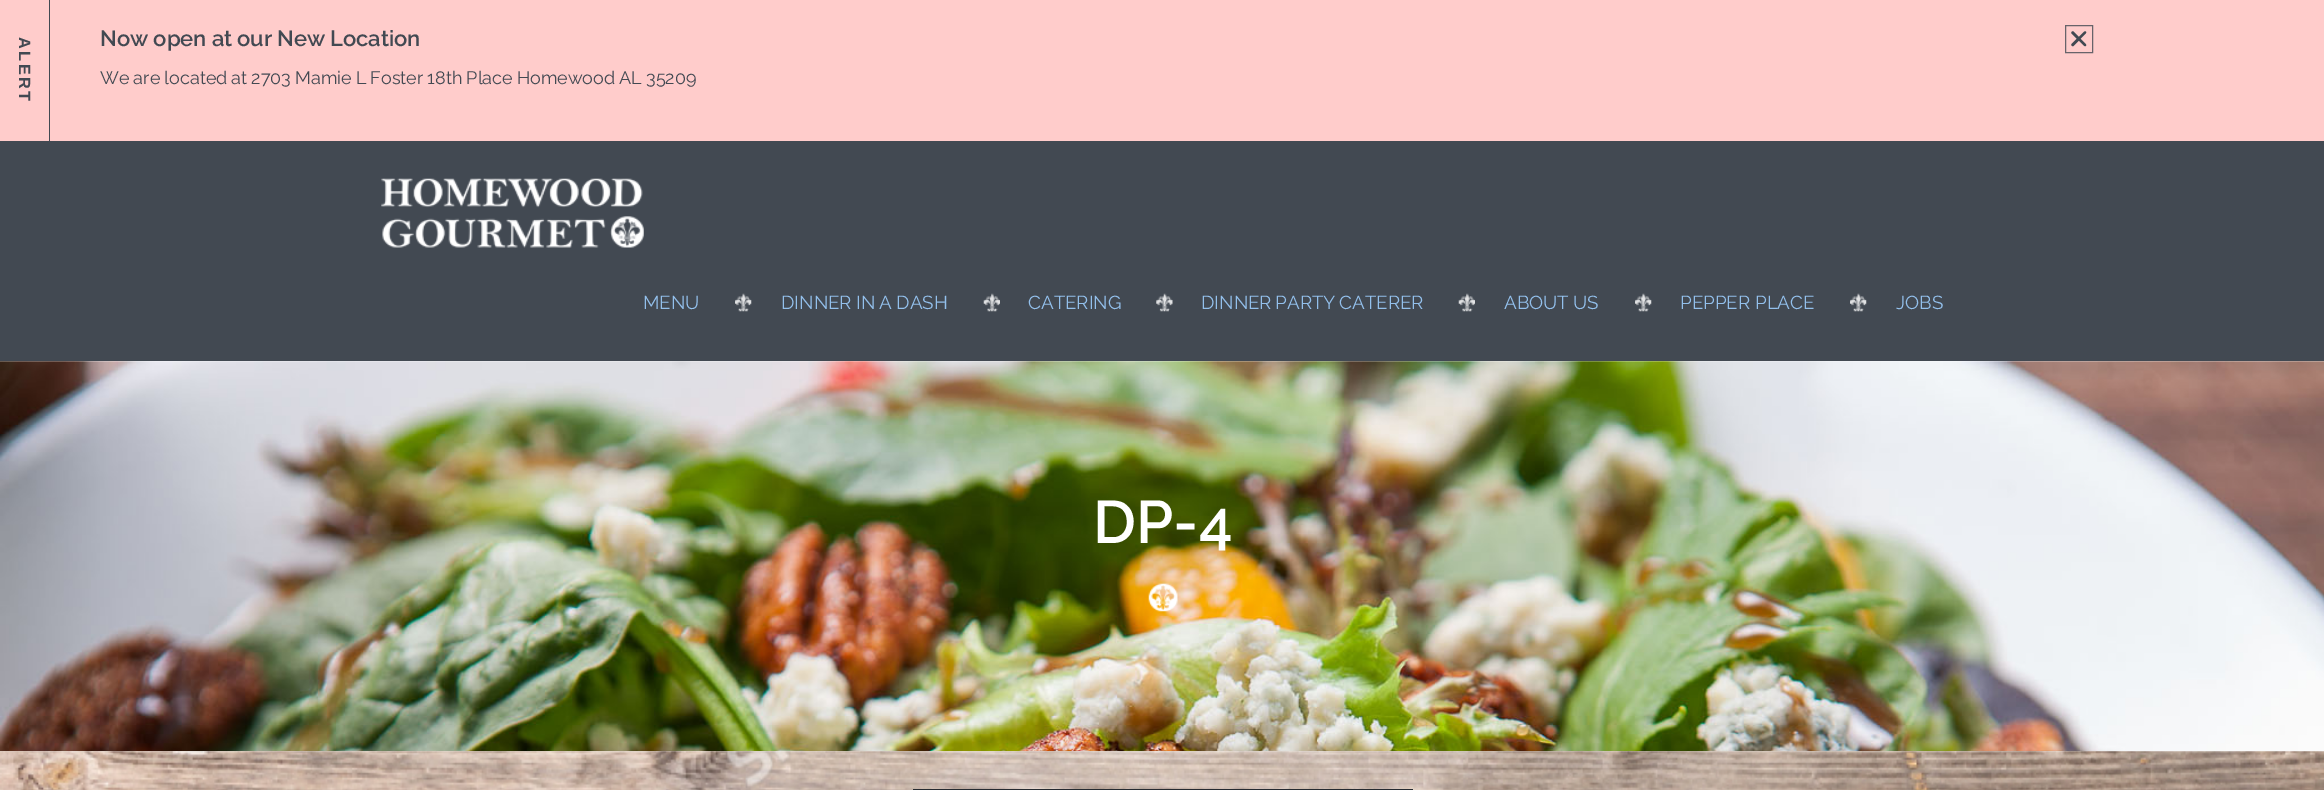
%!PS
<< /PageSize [2324 790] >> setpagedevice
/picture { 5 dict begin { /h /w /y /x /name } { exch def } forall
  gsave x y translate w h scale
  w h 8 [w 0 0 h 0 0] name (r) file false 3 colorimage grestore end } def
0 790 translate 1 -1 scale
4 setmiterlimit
1 setgray
0 0 2324 790 rectfill
1 0.8 0.796 setrgbcolor
0 0 2324 141 rectfill
0.259 0.286 0.322 setrgbcolor
49 0 1 141 rectfill
/LiberationSans-Bold [16.25 0 0 -16.25 0 0] selectfont
gsave 19 37 translate 90 rotate 0 0 moveto 2.5 0 (ALERT) ashow grestore
/Raleway-SemiBold [22 0 0 -22 0 0] selectfont
100 46 moveto -0.5 0 32 (Now open at our New Location) widthshow
0.408 0.388 0.416 setrgbcolor
2065.5 25.5 27 27 rectstroke
0.259 0.286 0.322 setrgbcolor
newpath 2073.5 31.5 moveto 2086 44.5 lineto 2086.5 45.5 2085.5 46.5 2084.5 46 curveto 2071.5 33.5 lineto 2070.5 32.5 2072.5 30.5 2073.5 31.5 curveto closepath fill
newpath 2071.5 44 moveto 2084.5 31.5 lineto 2085.5 31 2086.5 32 2086 33 curveto 2073.5 46 lineto 2072.5 47 2070.5 45 2071.5 44 curveto closepath fill
/Raleway-Regular [18 0 0 -18 0 0] selectfont
100 84 moveto -0.5 0 32 (We are located at 2703 Mamie L Foster 18th Place Homewood AL 35209) widthshow
0 141 2324 220 rectfill
(img1.rgb) 381 178 263 70 picture
/Raleway-Regular [18.75 0 0 -18.75 0 0] selectfont
0.576 0.753 0.925 setrgbcolor
643 309 moveto (MENU) show
(img2.rgb) 735 293 17 19 picture
781 309 moveto -0.5 0 32 (DINNER IN A DASH) widthshow
(img3.rgb) 983 293 17 19 picture
1028 309 moveto (CATERING) show
(img4.rgb) 1156 293 17 19 picture
1201 309 moveto -1 0 32 (DINNER PARTY CATERER) widthshow
(img5.rgb) 1458 293 17 19 picture
1504 309 moveto -1 0 32 (ABOUT US) widthshow
(img6.rgb) 1635 293 17 19 picture
1680 309 moveto (PEPPER PLACE) show
(img2.rgb) 1850 293 17 19 picture
1896 309 moveto (JOBS) show
(img7.rgb) 0 361 2324 391 picture
/Raleway-SemiBold [60 0 0 -60 0 0] selectfont
1 setgray
1093 543 moveto (DP-4) show
(img8.rgb) 1148 583 30 29 picture
(img9.rgb) 0 751 2324 39 picture
0.149 0.169 0.192 setrgbcolor
913 789 500 1 rectfill
showpage
